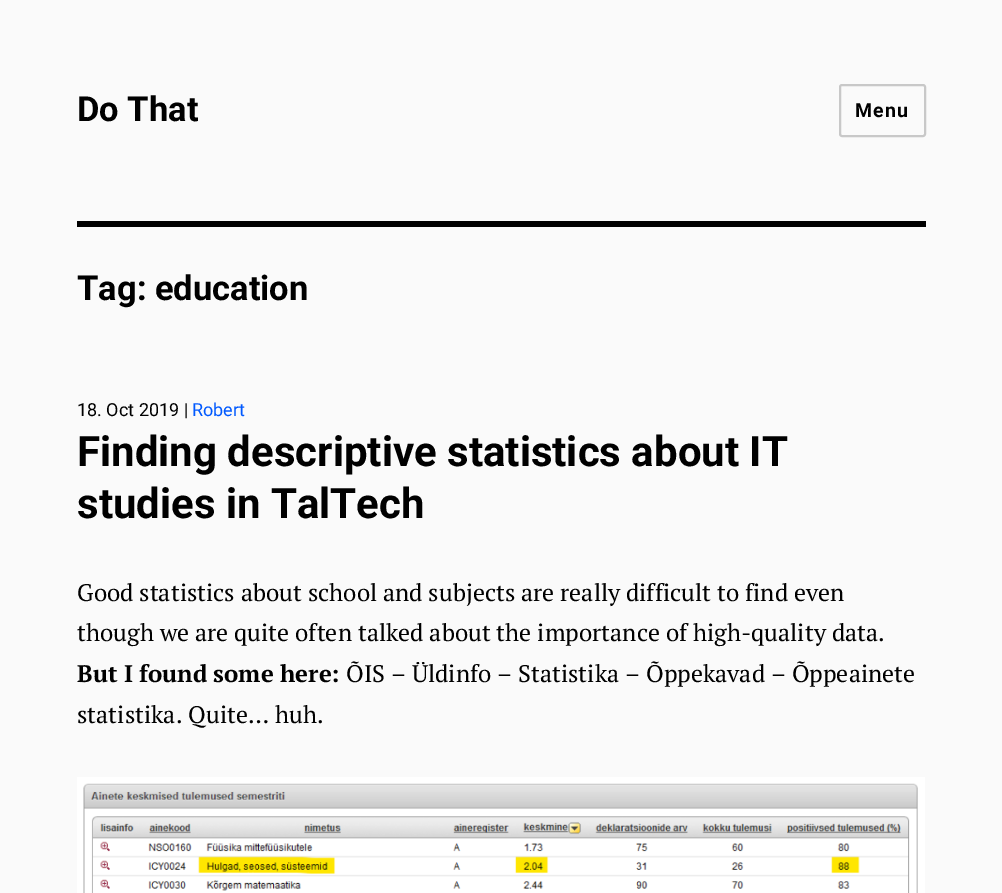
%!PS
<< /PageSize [1002 893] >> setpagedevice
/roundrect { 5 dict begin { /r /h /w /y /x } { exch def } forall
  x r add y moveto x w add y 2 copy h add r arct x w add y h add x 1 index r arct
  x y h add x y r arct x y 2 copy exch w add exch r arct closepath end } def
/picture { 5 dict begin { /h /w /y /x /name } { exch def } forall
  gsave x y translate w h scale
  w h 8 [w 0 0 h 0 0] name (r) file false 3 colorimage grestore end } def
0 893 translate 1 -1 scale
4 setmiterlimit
0.98 setgray
0 0 1002 893 rectfill
/Roboto-Bold [34.5 0 0 -34.5 0 0] selectfont
0 setgray
77 121 moveto (Do That) show
0.784 setgray
2 setlinewidth
840 85 85 51 2 roundrect stroke
/Roboto-Bold [19.5 0 0 -19.5 0 0] selectfont
0 setgray
855 117 moveto 1 0 (Menu) ashow
77 221 849 6 rectfill
/Roboto-Bold [34.5 0 0 -34.5 0 0] selectfont
77 300 moveto (Tag: education) show
/Roboto-Regular [18 0 0 -18 0 0] selectfont
77 416 moveto (18. Oct 2019 |) show
0 0.349 1 setrgbcolor
192 416 moveto (Robert) show
/Roboto-Bold [42 0 0 -42 0 0] selectfont
0 setgray
77 466 moveto (Finding descriptive statistics about IT) show
77 518 moveto (studies in TalTech) show
/PTSerif-Regular [24 0 0 -24 0 0] selectfont
77 601 moveto (Good statistics about school and subjects are really difficult to find even) show
77 641 moveto (though we are quite often talked about the importance of high-quality data.) show
/PTSerif-Bold [24 0 0 -24 0 0] selectfont
77 682 moveto (But I found some here:) show
/PTSerif-Regular [24 0 0 -24 0 0] selectfont
346 682 moveto (ÕIS – Üldinfo – Statistika – Õppekavad – Õppeainete) show
77 723 moveto (statistika. Quite… huh.) show
(img1.rgb) 77 777 848 116 picture
showpage
